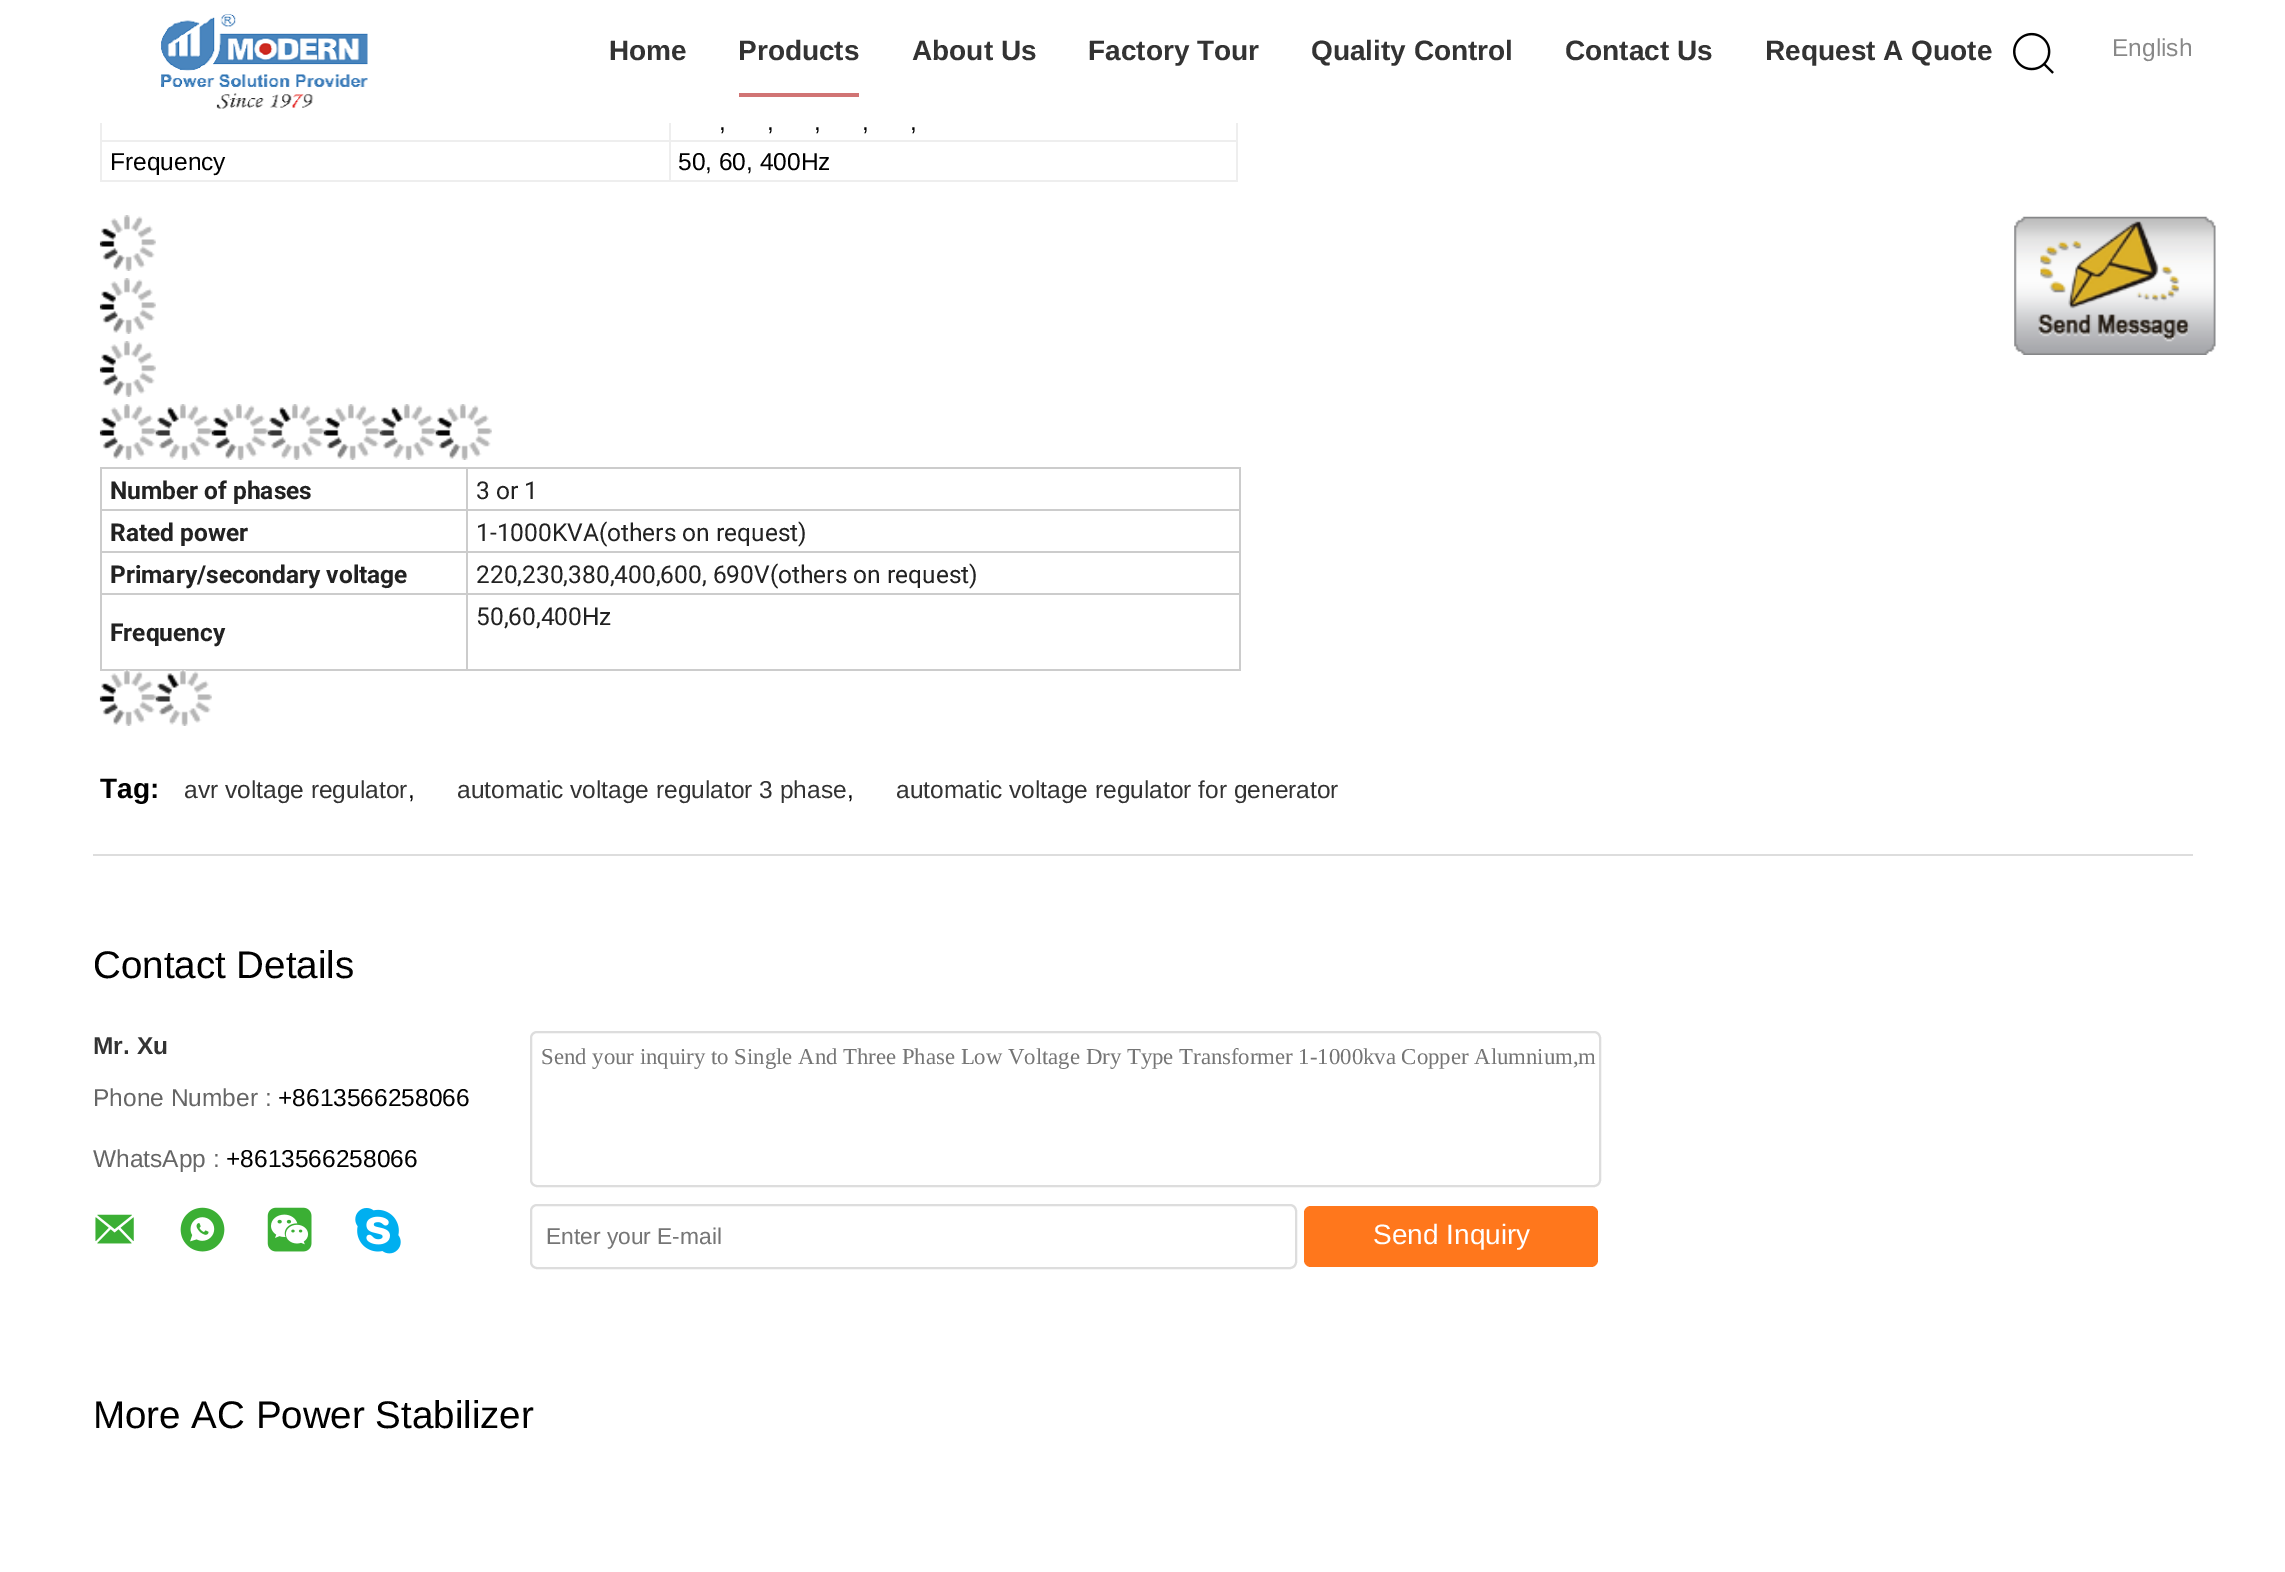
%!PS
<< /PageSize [2285 1572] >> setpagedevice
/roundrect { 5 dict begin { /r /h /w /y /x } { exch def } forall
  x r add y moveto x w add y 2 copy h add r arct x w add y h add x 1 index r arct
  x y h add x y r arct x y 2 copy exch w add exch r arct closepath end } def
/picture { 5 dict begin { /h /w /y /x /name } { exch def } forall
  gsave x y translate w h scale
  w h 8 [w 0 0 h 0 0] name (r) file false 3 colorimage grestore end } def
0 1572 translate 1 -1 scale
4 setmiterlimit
1 setgray
0 0 2285 1572 rectfill
(img1.rgb) 160 14 208 95 picture
/LiberationSans-Bold [28 0 0 -28 0 0] selectfont
0.2 setgray
609 60 moveto (Home) show
0.82 0.455 0.455 setrgbcolor
739 93 120 4 rectfill
0.2 setgray
738 60 moveto (Products) show
912 60 moveto (About Us) show
1088 60 moveto (Factory Tour) show
1311 60 moveto (Quality Control) show
1565 60 moveto (Contact Us) show
1765 60 moveto (Request A Quote) show
(img2.rgb) 2013 32 41 42 picture
/LiberationSans-Regular [24.5 0 0 -24.5 0 0] selectfont
0.533 setgray
2112 56 moveto (English) show
0.867 setgray
93 854 2100 2 rectfill
0.933 setgray
1236 123 2 59 rectfill
100 180 1137 2 rectfill
100 123 2 59 rectfill
669 140 568 2 rectfill
669 140 2 42 rectfill
100 140 570 2 rectfill
669 123 2 19 rectfill
0 setgray
719 130 moveto (,) show
767 130 moveto (,) show
814 130 moveto (,) show
862 130 moveto (,) show
910 130 moveto (,) show
110 170 moveto (Frequency) show
678 170 moveto (50, 60, 400Hz) show
(img3.rgb) 99 215 57 56 picture
(img3.rgb) 99 278 57 56 picture
(img3.rgb) 99 341 57 56 picture
(img3.rgb) 99 404 57 56 picture
(img4.rgb) 155 404 57 56 picture
(img5.rgb) 211 404 57 56 picture
(img6.rgb) 267 404 57 56 picture
(img7.rgb) 323 404 57 56 picture
(img6.rgb) 379 404 57 56 picture
(img7.rgb) 435 404 57 56 picture
0.8 setgray
100 467 1141 2 rectfill
1239 467 2 203 rectfill
100 669 1141 2 rectfill
100 467 2 203 rectfill
/Roboto-Bold [24.5 0 0 -24.5 0 0] selectfont
0.133 setgray
110 499 moveto (Number of phases) show
0.8 setgray
466 509 775 2 rectfill
466 551 775 2 rectfill
466 593 775 2 rectfill
466 593 2 77 rectfill
100 593 367 2 rectfill
466 551 2 44 rectfill
100 551 367 2 rectfill
466 509 2 44 rectfill
100 509 367 2 rectfill
466 467 2 44 rectfill
/Roboto-Regular [24.5 0 0 -24.5 0 0] selectfont
0.133 setgray
476 499 moveto (3 or 1) show
/Roboto-Bold [24.5 0 0 -24.5 0 0] selectfont
110 541 moveto (Rated power) show
/Roboto-Regular [24.5 0 0 -24.5 0 0] selectfont
476 541 moveto (1-1000KVA\(others on request\)) show
/Roboto-Bold [24.5 0 0 -24.5 0 0] selectfont
110 583 moveto (Primary/secondary voltage) show
/Roboto-Regular [24.5 0 0 -24.5 0 0] selectfont
476 583 moveto (220,230,380,400,600, 690V\(others on request\)) show
476 625 moveto (50,60,400Hz) show
/Roboto-Bold [24.5 0 0 -24.5 0 0] selectfont
110 641 moveto (Frequency) show
(img8.rgb) 99 670 57 56 picture
(img9.rgb) 155 670 57 56 picture
/LiberationSans-Bold [28 0 0 -28 0 0] selectfont
0 setgray
100 798 moveto (Tag:) show
/LiberationSans-Regular [24.5 0 0 -24.5 0 0] selectfont
0.2 setgray
184 798 moveto (avr voltage regulator) show
0 setgray
408 798 moveto (,) show
0.2 setgray
457 798 moveto (automatic voltage regulator 3 phase) show
0 setgray
847 798 moveto (,) show
0.2 setgray
896 798 moveto (automatic voltage regulator for generator) show
(img10.rgb) 2014 216 202 139 picture
/LiberationSans-Regular [38.5 0 0 -38.5 0 0] selectfont
0 setgray
93 978 moveto (Contact Details) show
/LiberationSans-Bold [24.5 0 0 -24.5 0 0] selectfont
0.2 setgray
93 1054 moveto (Mr. Xu) show
/LiberationSans-Regular [24.5 0 0 -24.5 0 0] selectfont
0.4 setgray
93 1106 moveto (Phone Number :) show
0 setgray
278 1106 moveto (+8613566258066) show
0.4 setgray
93 1167 moveto (WhatsApp :) show
0 setgray
226 1167 moveto (+8613566258066) show
(img11.rgb) 95 1214 39 30 picture
(img12.rgb) 180 1207 45 45 picture
(img13.rgb) 267 1207 45 45 picture
(img14.rgb) 355 1208 46 46 picture
0.867 setgray
2 setlinewidth
531 1032 1069 154 6 roundrect stroke
/LiberationSerif-Regular [22.75 0 0 -22.75 0 0] selectfont
0.459 setgray
541 1064 moveto (Send your inquiry to Single And Three Phase Low Voltage Dry Type Transformer 1-1000kva Copper Alumnium,m) show
0.867 setgray
531 1205 765 63 6 roundrect stroke
/LiberationSans-Regular [22.75 0 0 -22.75 0 0] selectfont
0.459 setgray
546 1244 moveto (Enter your E-mail) show
1 0.467 0.11 setrgbcolor
1304 1206 294 61 7 roundrect fill
/LiberationSans-Regular [28 0 0 -28 0 0] selectfont
1 setgray
1373 1244 moveto (Send Inquiry) show
/LiberationSans-Regular [38.5 0 0 -38.5 0 0] selectfont
0 setgray
93 1428 moveto (More AC Power Stabilizer) show
showpage
